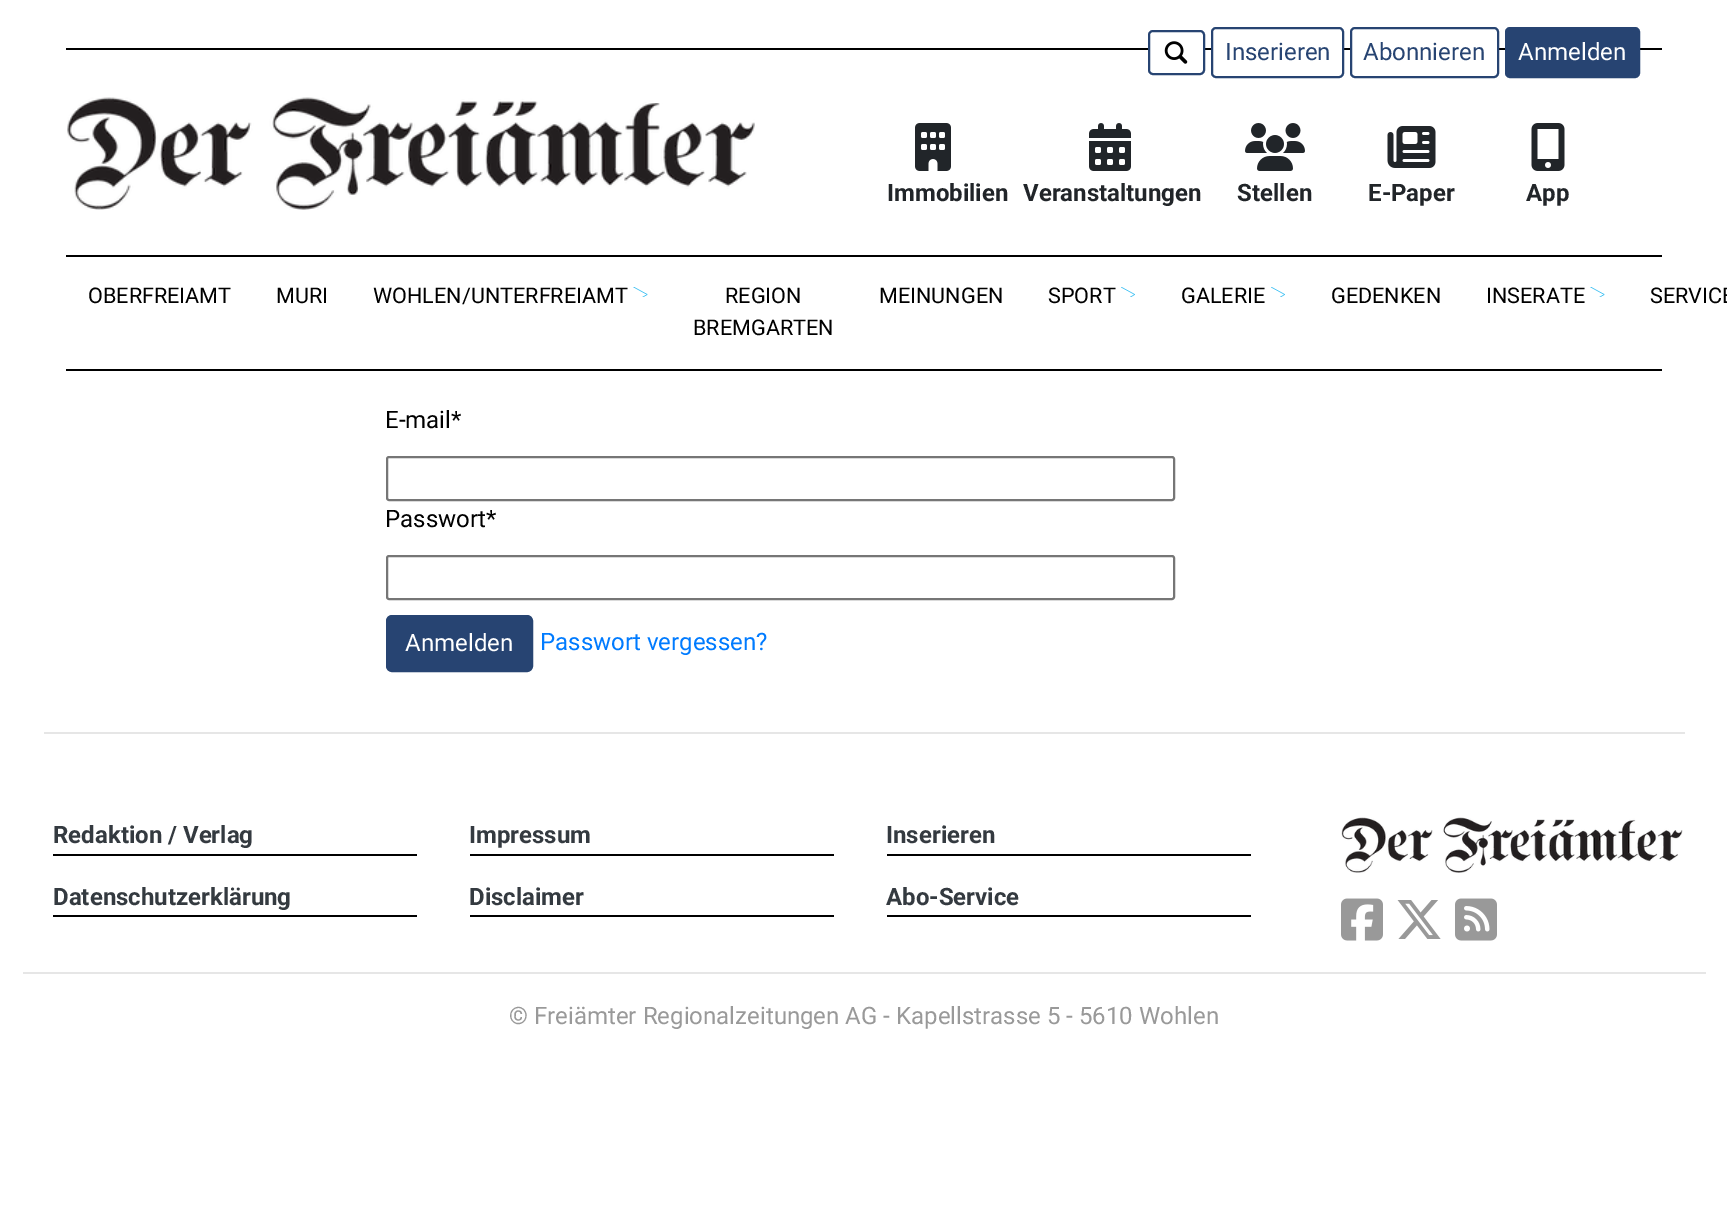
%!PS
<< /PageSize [1727 1222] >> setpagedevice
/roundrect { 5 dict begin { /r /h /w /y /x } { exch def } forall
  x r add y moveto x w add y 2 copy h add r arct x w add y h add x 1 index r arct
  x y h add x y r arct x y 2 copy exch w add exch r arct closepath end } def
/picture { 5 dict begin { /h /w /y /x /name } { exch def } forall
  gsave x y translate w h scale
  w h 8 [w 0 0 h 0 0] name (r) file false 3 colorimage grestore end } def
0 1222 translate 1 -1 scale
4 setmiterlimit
1 setgray
0 0 1727 1222 rectfill
0 setgray
66 48 1596 2 rectfill
1 setgray
1149 31 55 43 4 roundrect gsave fill grestore
0.153 0.267 0.447 setrgbcolor
2 setlinewidth
stroke
(img1.rgb) 1164 41 24 23 picture
1 setgray
1212 28 131 49 4 roundrect gsave fill grestore
0.153 0.267 0.447 setrgbcolor
stroke
/Roboto-Regular [24 0 0 -24 0 0] selectfont
1225 60 moveto (Inserieren) show
1 setgray
1351 28 147 49 4 roundrect gsave fill grestore
0.153 0.267 0.447 setrgbcolor
stroke
1363 60 moveto (Abonnieren) show
1506 28 133 49 4 roundrect gsave fill grestore
stroke
1 setgray
1518 60 moveto (Anmelden) show
(img2.rgb) 67 97 688 113 picture
(img3.rgb) 915 123 36 48 picture
/Roboto-Bold [24 0 0 -24 0 0] selectfont
0.129 0.145 0.161 setrgbcolor
887 201 moveto (Immobilien) show
(img4.rgb) 1089 123 42 48 picture
1023 201 moveto (Veranstaltungen) show
(img5.rgb) 1245 123 60 48 picture
1237 201 moveto (Stellen) show
(img6.rgb) 1387 126 49 42 picture
1368 201 moveto (E-Paper) show
(img7.rgb) 1531 123 34 48 picture
1526 201 moveto (App) show
0 setgray
66 255 1596 2 rectfill
66 369 1596 2 rectfill
/Roboto-Regular [21.6 0 0 -21.6 0 0] selectfont
88 303 moveto (OBERFREIAMT) show
276 303 moveto (MURI) show
373 303 moveto (WOHLEN/UNTERFREIAMT) show
(img8.rgb) 633 287 15 10 picture
725 303 moveto (REGION) show
693 335 moveto (BREMGARTEN) show
879 303 moveto (MEINUNGEN) show
1048 303 moveto (SPORT) show
(img9.rgb) 1121 287 14 10 picture
1181 303 moveto (GALERIE) show
(img9.rgb) 1271 287 14 10 picture
1331 303 moveto (GEDENKEN) show
1486 303 moveto (INSERATE) show
(img8.rgb) 1590 287 15 10 picture
1650 303 moveto (SERVICE) show
/Roboto-Regular [24 0 0 -24 0 0] selectfont
385 428 moveto (E-mail*) show
0.463 setgray
387 457 787 43 2 roundrect stroke
0 setgray
385 527 moveto (Passwort*) show
0.463 setgray
387 556 787 43 2 roundrect stroke
0.153 0.267 0.447 setrgbcolor
387 616 145 55 5 roundrect gsave fill grestore
stroke
1 setgray
405 651 moveto (Anmelden) show
0 0.482 1 setrgbcolor
540 650 moveto (Passwort vergessen?) show
0.902 setgray
44 732 1641 2 rectfill
0 setgray
53 854 364 2 rectfill
/Roboto-Bold [24 0 0 -24 0 0] selectfont
0.204 0.227 0.251 setrgbcolor
53 843 moveto (Redaktion / Verlag) show
0 setgray
470 854 364 2 rectfill
0.204 0.227 0.251 setrgbcolor
469 843 moveto (Impressum) show
0 setgray
887 854 364 2 rectfill
0.204 0.227 0.251 setrgbcolor
886 843 moveto (Inserieren) show
0 setgray
53 915 364 2 rectfill
0.204 0.227 0.251 setrgbcolor
53 905 moveto (Datenschutzerklärung) show
0 setgray
470 915 364 2 rectfill
0.204 0.227 0.251 setrgbcolor
469 905 moveto (Disclaimer) show
0 setgray
887 915 364 2 rectfill
0.204 0.227 0.251 setrgbcolor
886 905 moveto (Abo-Service) show
(img10.rgb) 1341 817 342 56 picture
(img11.rgb) 1341 898 42 43 picture
(img12.rgb) 1397 900 44 39 picture
(img13.rgb) 1455 898 42 43 picture
0.902 setgray
23 972 1683 2 rectfill
/Roboto-Regular [24 0 0 -24 0 0] selectfont
0.6 setgray
509 1024 moveto (© Freiämter Regionalzeitungen AG - Kapellstrasse 5 - 5610 Wohlen) show
showpage
